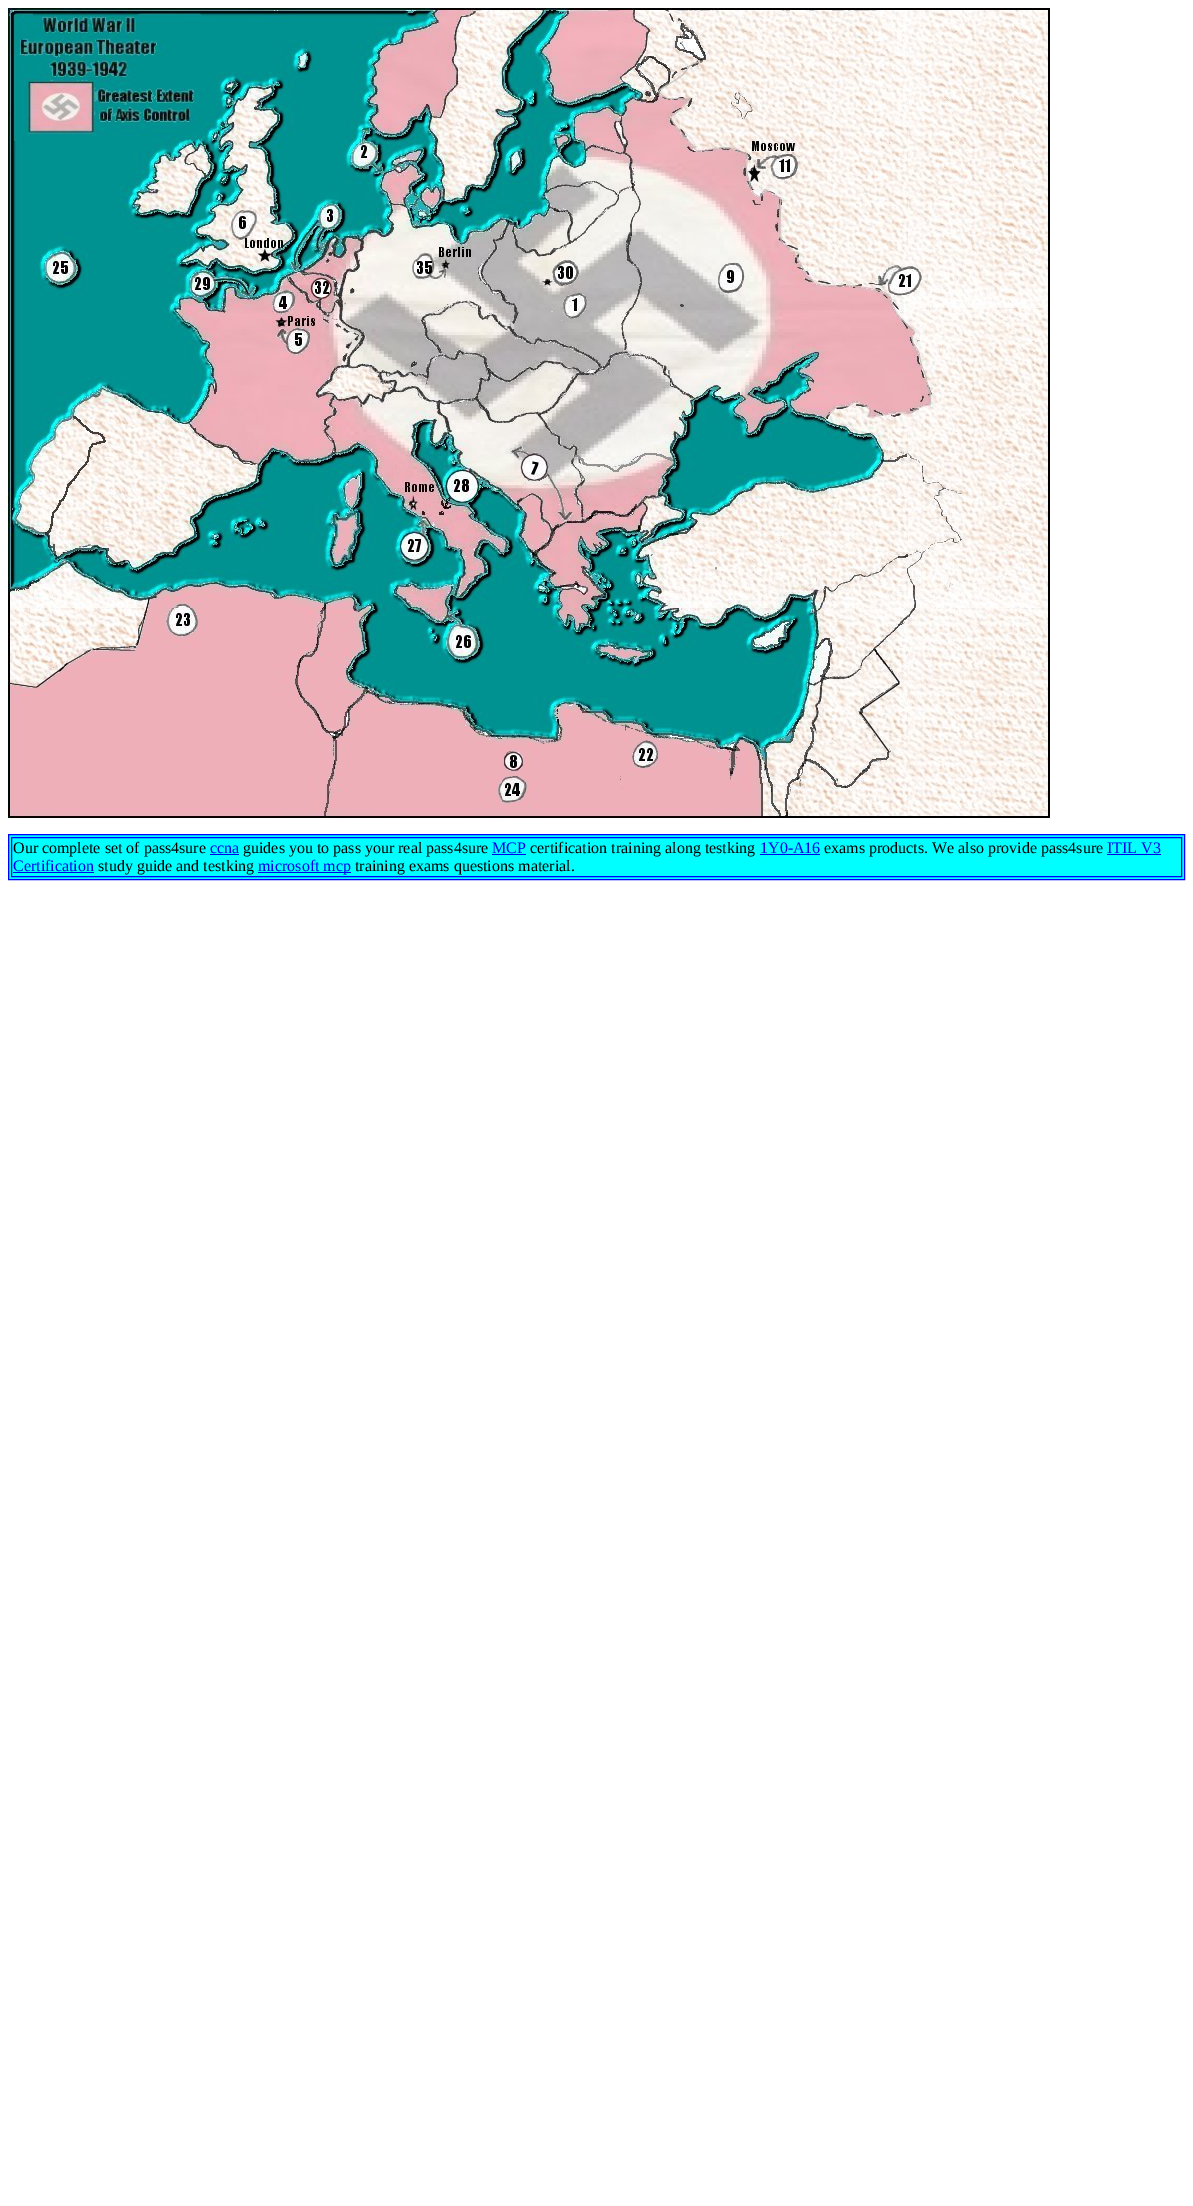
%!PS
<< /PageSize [1193 2206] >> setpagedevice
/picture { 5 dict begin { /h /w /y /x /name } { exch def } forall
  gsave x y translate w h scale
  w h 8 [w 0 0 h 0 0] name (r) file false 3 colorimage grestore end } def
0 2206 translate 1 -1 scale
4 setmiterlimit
1 setgray
0 0 1193 2206 rectfill
(img1.rgb) 8 8 1042 810 picture
0 1 1 setrgbcolor
newpath 8.5 834.5 moveto 1184.5 834.5 lineto 1184.5 879.5 lineto 8.5 879.5 lineto closepath gsave fill grestore
0 0 1 setrgbcolor
stroke
11.5 837.5 1170 39 rectstroke
/LiberationSerif-Regular [16 0 0 -16 0 0] selectfont
0 setgray
13 853 moveto (Our complete set of pass4sure) show
0 0 0.933 setrgbcolor
210 853 moveto (ccna) show
210 854 29 1 rectfill
0 setgray
243 853 moveto (guides you to pass your real pass4sure) show
0 0 0.933 setrgbcolor
492 853 moveto (MCP) show
492 854 34 1 rectfill
0 setgray
530 853 moveto (certification training along testking) show
0 0 0.933 setrgbcolor
760 853 moveto (1Y0-A16) show
760 854 60 1 rectfill
0 setgray
824 853 moveto (exams products. We also provide pass4sure) show
0 0 0.933 setrgbcolor
1107 853 moveto (ITIL V3) show
1107 854 54 1 rectfill
13 871 moveto (Certification) show
13 872 81 1 rectfill
0 setgray
98 871 moveto (study guide and testking) show
0 0 0.933 setrgbcolor
258 872 93 1 rectfill
258 871 moveto (microsoft mcp) show
0 setgray
355 871 moveto (training exams questions material.) show
showpage
